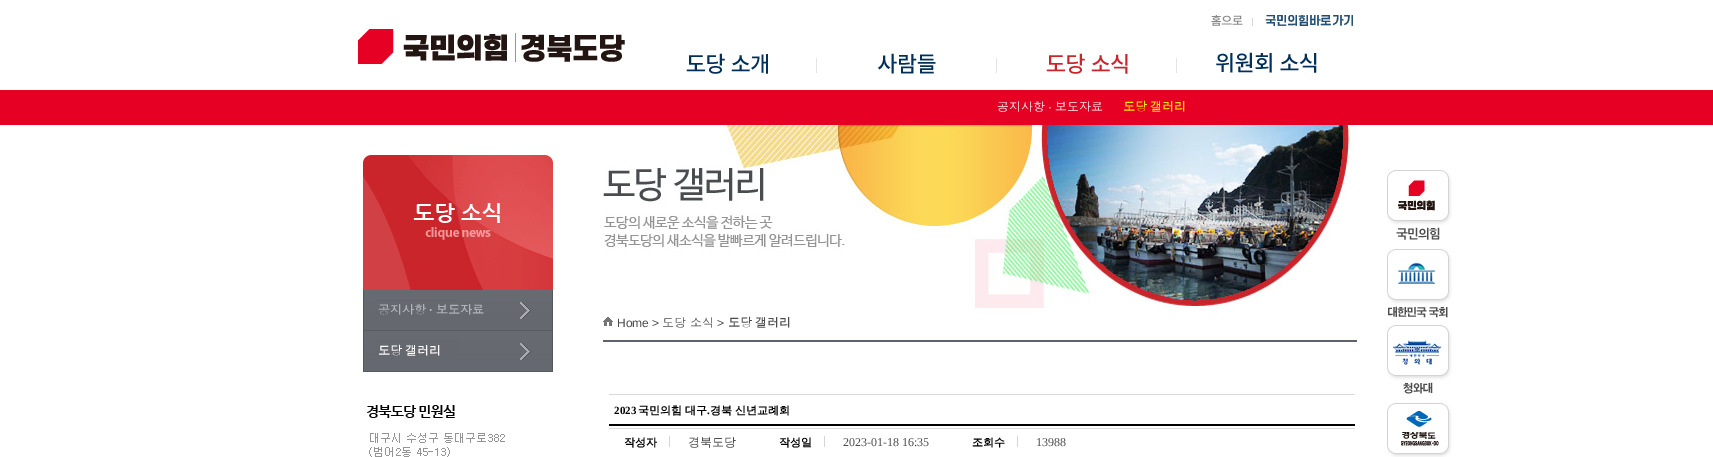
%!PS
<< /PageSize [1713 457] >> setpagedevice
/picture { 5 dict begin { /h /w /y /x /name } { exch def } forall
  gsave x y translate w h scale
  w h 8 [w 0 0 h 0 0] name (r) file false 3 colorimage grestore end } def
0 457 translate 1 -1 scale
4 setmiterlimit
1 setgray
0 0 1713 457 rectfill
0.902 0 0.141 setrgbcolor
0 90 1713 35 rectfill
0.839 setgray
1252 18 1 8 rectfill
(img1.rgb) 1211 15 32 11 picture
(img2.rgb) 1265 15 88 11 picture
(img3.rgb) 358 29 267 40 picture
0.894 setgray
816 58 1 15 rectfill
(img4.rgb) 686 53 82 21 picture
996 58 1 15 rectfill
(img5.rgb) 878 53 58 21 picture
(img6.rgb) 1216 52 101 21 picture
1176 58 1 15 rectfill
(img7.rgb) 1046 53 82 21 picture
/Dotum-Regular [12 0 0 -12 0 0] selectfont
1 setgray
997 111 moveto (공지사항) show
/LiberationSans-Regular [12 0 0 -12 0 0] selectfont
1048 111 moveto (·) show
/Dotum-Regular [12 0 0 -12 0 0] selectfont
1055 111 moveto (보도자료) show
/Dotum-Bold [12 0 0 -12 0 0] selectfont
1 0.918 0 setrgbcolor
1123 111 moveto -1 0 32 (도당 갤러리) widthshow
(img8.rgb) 1387 170 65 70 picture
(img9.rgb) 1387 249 65 69 picture
(img10.rgb) 1387 325 65 69 picture
(img11.rgb) 1387 403 65 54 picture
(img12.rgb) 363 155 190 135 picture
0.349 0.357 0.38 setrgbcolor
363 330 190 1 rectfill
(img13.rgb) 363 290 190 40 picture
0.694 0.702 0.733 setrgbcolor
378 314 moveto (공지사항) show
/LiberationSans-Bold [12 0 0 -12 0 0] selectfont
429 314 moveto (·) show
/Dotum-Bold [12 0 0 -12 0 0] selectfont
436 314 moveto (보도자료) show
0.349 0.357 0.38 setrgbcolor
363 371 190 1 rectfill
(img13.rgb) 363 331 190 40 picture
1 setgray
378 355 moveto -1 0 32 (도당 갤러리) widthshow
(img14.rgb) 367 405 138 52 picture
(img15.rgb) 603 125 752 184 picture
(img16.rgb) 603 317 10 9 picture
/LiberationSans-Regular [12 0 0 -12 0 0] selectfont
0.302 setgray
617 327 moveto (Home >) show
/Dotum-Regular [12 0 0 -12 0 0] selectfont
662 327 moveto (도당 소식) show
/LiberationSans-Regular [12 0 0 -12 0 0] selectfont
717 327 moveto (>) show
/Dotum-Bold [12 0 0 -12 0 0] selectfont
728 327 moveto -1 0 32 (도당 갤러리) widthshow
0.376 0.384 0.42 setrgbcolor
603 340 754 2 rectfill
0.859 0.855 0.855 setrgbcolor
609 394 746 1 rectfill
0 setgray
609 424 746 2 rectfill
/LiberationSerif-Bold [11 0 0 -11 0 0] selectfont
614 414 moveto (2023) show
/WenQuanYiZenHei-Bold [11 0 0 -11 0 0] selectfont
638 414 moveto (국민의힘 대구) show
/LiberationSerif-Bold [11 0 0 -11 0 0] selectfont
707 414 moveto (.) show
/WenQuanYiZenHei-Bold [11 0 0 -11 0 0] selectfont
710 414 moveto (경북 신년교례회) show
0.859 0.855 0.855 setrgbcolor
609 428 746 1 rectfill
0 setgray
624 446 moveto (작성자) show
0.835 setgray
669 436 1 11 rectfill
/WenQuanYiZenHei-Medium [12 0 0 -12 0 0] selectfont
0.302 setgray
688 446 moveto (경북도당) show
/WenQuanYiZenHei-Bold [11 0 0 -11 0 0] selectfont
0 setgray
779 446 moveto (작성일) show
0.835 setgray
824 436 1 11 rectfill
/LiberationSerif-Regular [12 0 0 -12 0 0] selectfont
0.302 setgray
843 446 moveto (2023-01-18 16:35) show
/WenQuanYiZenHei-Bold [11 0 0 -11 0 0] selectfont
0 setgray
972 446 moveto (조회수) show
0.835 setgray
1017 436 1 11 rectfill
/LiberationSerif-Regular [12 0 0 -12 0 0] selectfont
0.302 setgray
1036 446 moveto (13988) show
showpage
